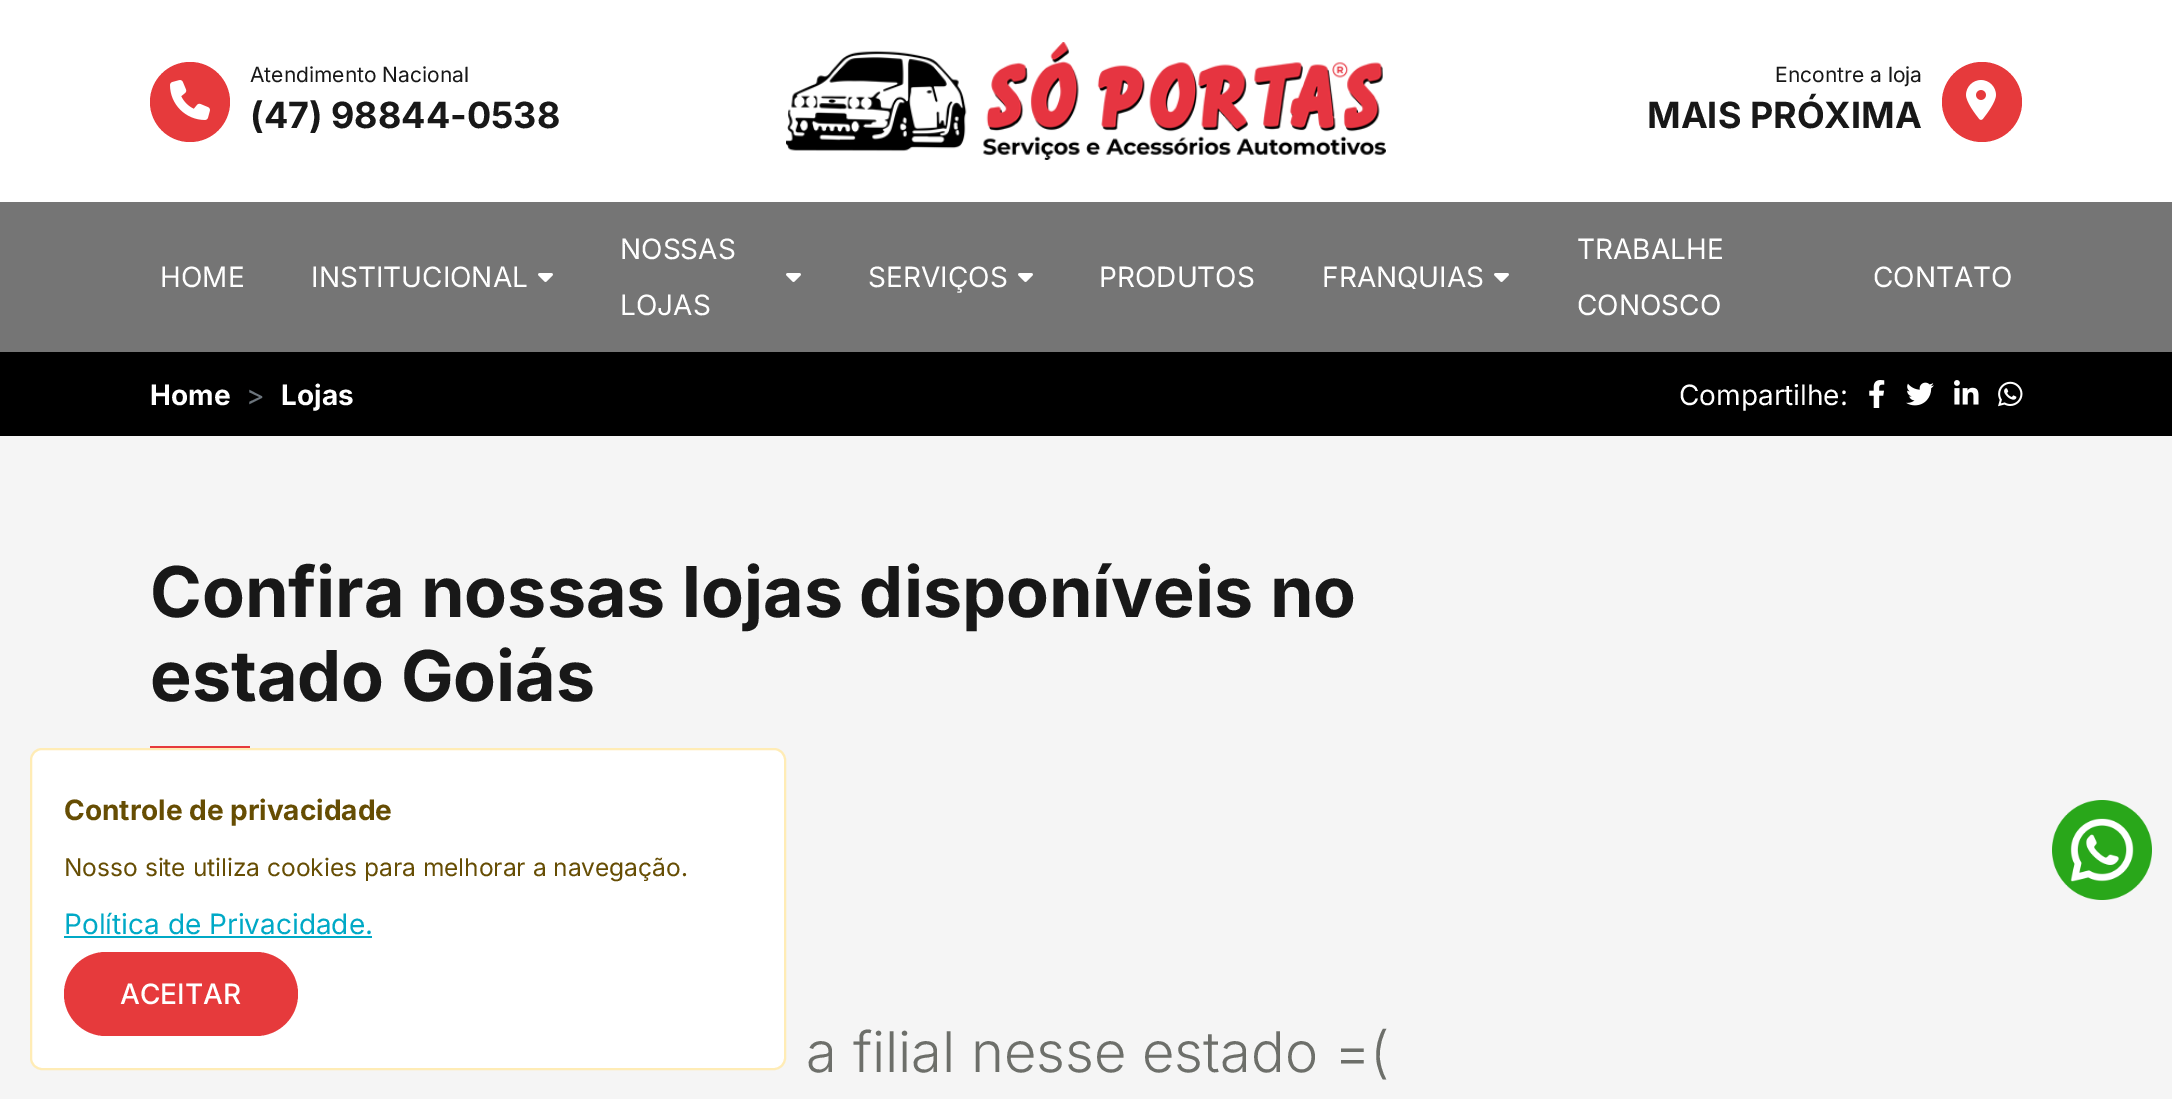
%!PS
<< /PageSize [2172 1099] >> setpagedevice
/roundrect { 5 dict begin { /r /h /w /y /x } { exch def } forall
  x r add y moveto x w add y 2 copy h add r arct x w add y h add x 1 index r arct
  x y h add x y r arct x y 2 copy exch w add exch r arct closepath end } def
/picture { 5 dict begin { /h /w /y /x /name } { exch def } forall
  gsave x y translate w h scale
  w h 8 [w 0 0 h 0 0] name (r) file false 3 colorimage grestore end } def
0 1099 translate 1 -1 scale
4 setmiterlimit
0.961 setgray
0 0 2172 1099 rectfill
1 setgray
0 0 2172 202 rectfill
0.902 0.227 0.235 setrgbcolor
newpath 190 102 40 0 360 arc closepath fill
(img1.rgb) 170 80 40 40 picture
/Inter-Regular [21 0 0 -21 0 0] selectfont
0.094 setgray
250 82 moveto (Atendimento Nacional) show
/Inter-Bold [36 0 0 -36 0 0] selectfont
250 128 moveto (\(47\) 98844-0538) show
(img2.rgb) 786 42 600 118 picture
/Inter-Regular [21 0 0 -21 0 0] selectfont
1775 82 moveto (Encontre a loja) show
/Inter-Bold [36 0 0 -36 0 0] selectfont
1647 128 moveto (MAIS PRÓXIMA) show
0.902 0.227 0.235 setrgbcolor
newpath 1982 102 40 0 360 arc closepath fill
(img3.rgb) 1966 80 30 40 picture
0.459 setgray
0 202 2172 150 rectfill
/Inter-Regular [28 0 0 -28 0 0] selectfont
1 setgray
160 287 moveto (HOME) show
311 287 moveto (INSTITUCIONAL) show
(img4.rgb) 538 273 15 9 picture
620 259 moveto (NOSSAS) show
(img4.rgb) 786 273 15 9 picture
620 315 moveto (LOJAS) show
868 287 moveto (SERVIÇOS) show
(img4.rgb) 1018 273 15 9 picture
1099 287 moveto (PRODUTOS) show
1322 287 moveto (FRANQUIAS) show
(img4.rgb) 1494 273 15 9 picture
1577 259 moveto (TRABALHE) show
1577 315 moveto (CONOSCO) show
1873 287 moveto (CONTATO) show
0 setgray
0 352 2172 84 rectfill
/Inter-Bold [28 0 0 -28 0 0] selectfont
1 setgray
150 405 moveto (Home) show
/Inter-Regular [28 0 0 -28 0 0] selectfont
0.424 0.459 0.49 setrgbcolor
246 405 moveto (>) show
/Inter-Bold [28 0 0 -28 0 0] selectfont
1 setgray
281 405 moveto (Lojas) show
/Inter-Regular [28 0 0 -28 0 0] selectfont
1679 405 moveto (Compartilhe:) show
(img5.rgb) 1869 380 16 28 picture
(img6.rgb) 1906 382 28 24 picture
(img7.rgb) 1954 380 25 25 picture
(img8.rgb) 1998 381 25 26 picture
/Inter-Bold [70 0 0 -70 0 0] selectfont
0.094 setgray
150 617 moveto (Confira nossas lojas disponíveis no) show
150 701 moveto (estado Goiás) show
0.902 0.227 0.235 setrgbcolor
150 746 100 2 rectfill
/Inter-Light [56 0 0 -56 0 0] selectfont
0.427 0.435 0.416 setrgbcolor
806 1072 moveto (a filial nesse estado =\() show
1 setgray
31 749 754 320 11 roundrect gsave fill grestore
1 0.925 0.71 setrgbcolor
2 setlinewidth
stroke
/Inter-Bold [28 0 0 -28 0 0] selectfont
0.4 0.302 0.012 setrgbcolor
64 820 moveto (Controle de privacidade) show
/Inter-Regular [24.5 0 0 -24.5 0 0] selectfont
64 876 moveto (Nosso site utiliza cookies para melhorar a navegação.) show
/Inter-Regular [28 0 0 -28 0 0] selectfont
0 0.663 0.776 setrgbcolor
64 934 moveto (Política de Privacidade.) show
64 936 308 2 rectfill
0.902 0.227 0.235 setrgbcolor
64 952 234 84 42 roundrect fill
/Inter-Medium [28 0 0 -28 0 0] selectfont
1 setgray
120 1004 moveto (ACEITAR) show
(img9.rgb) 2052 800 100 100 picture
showpage
